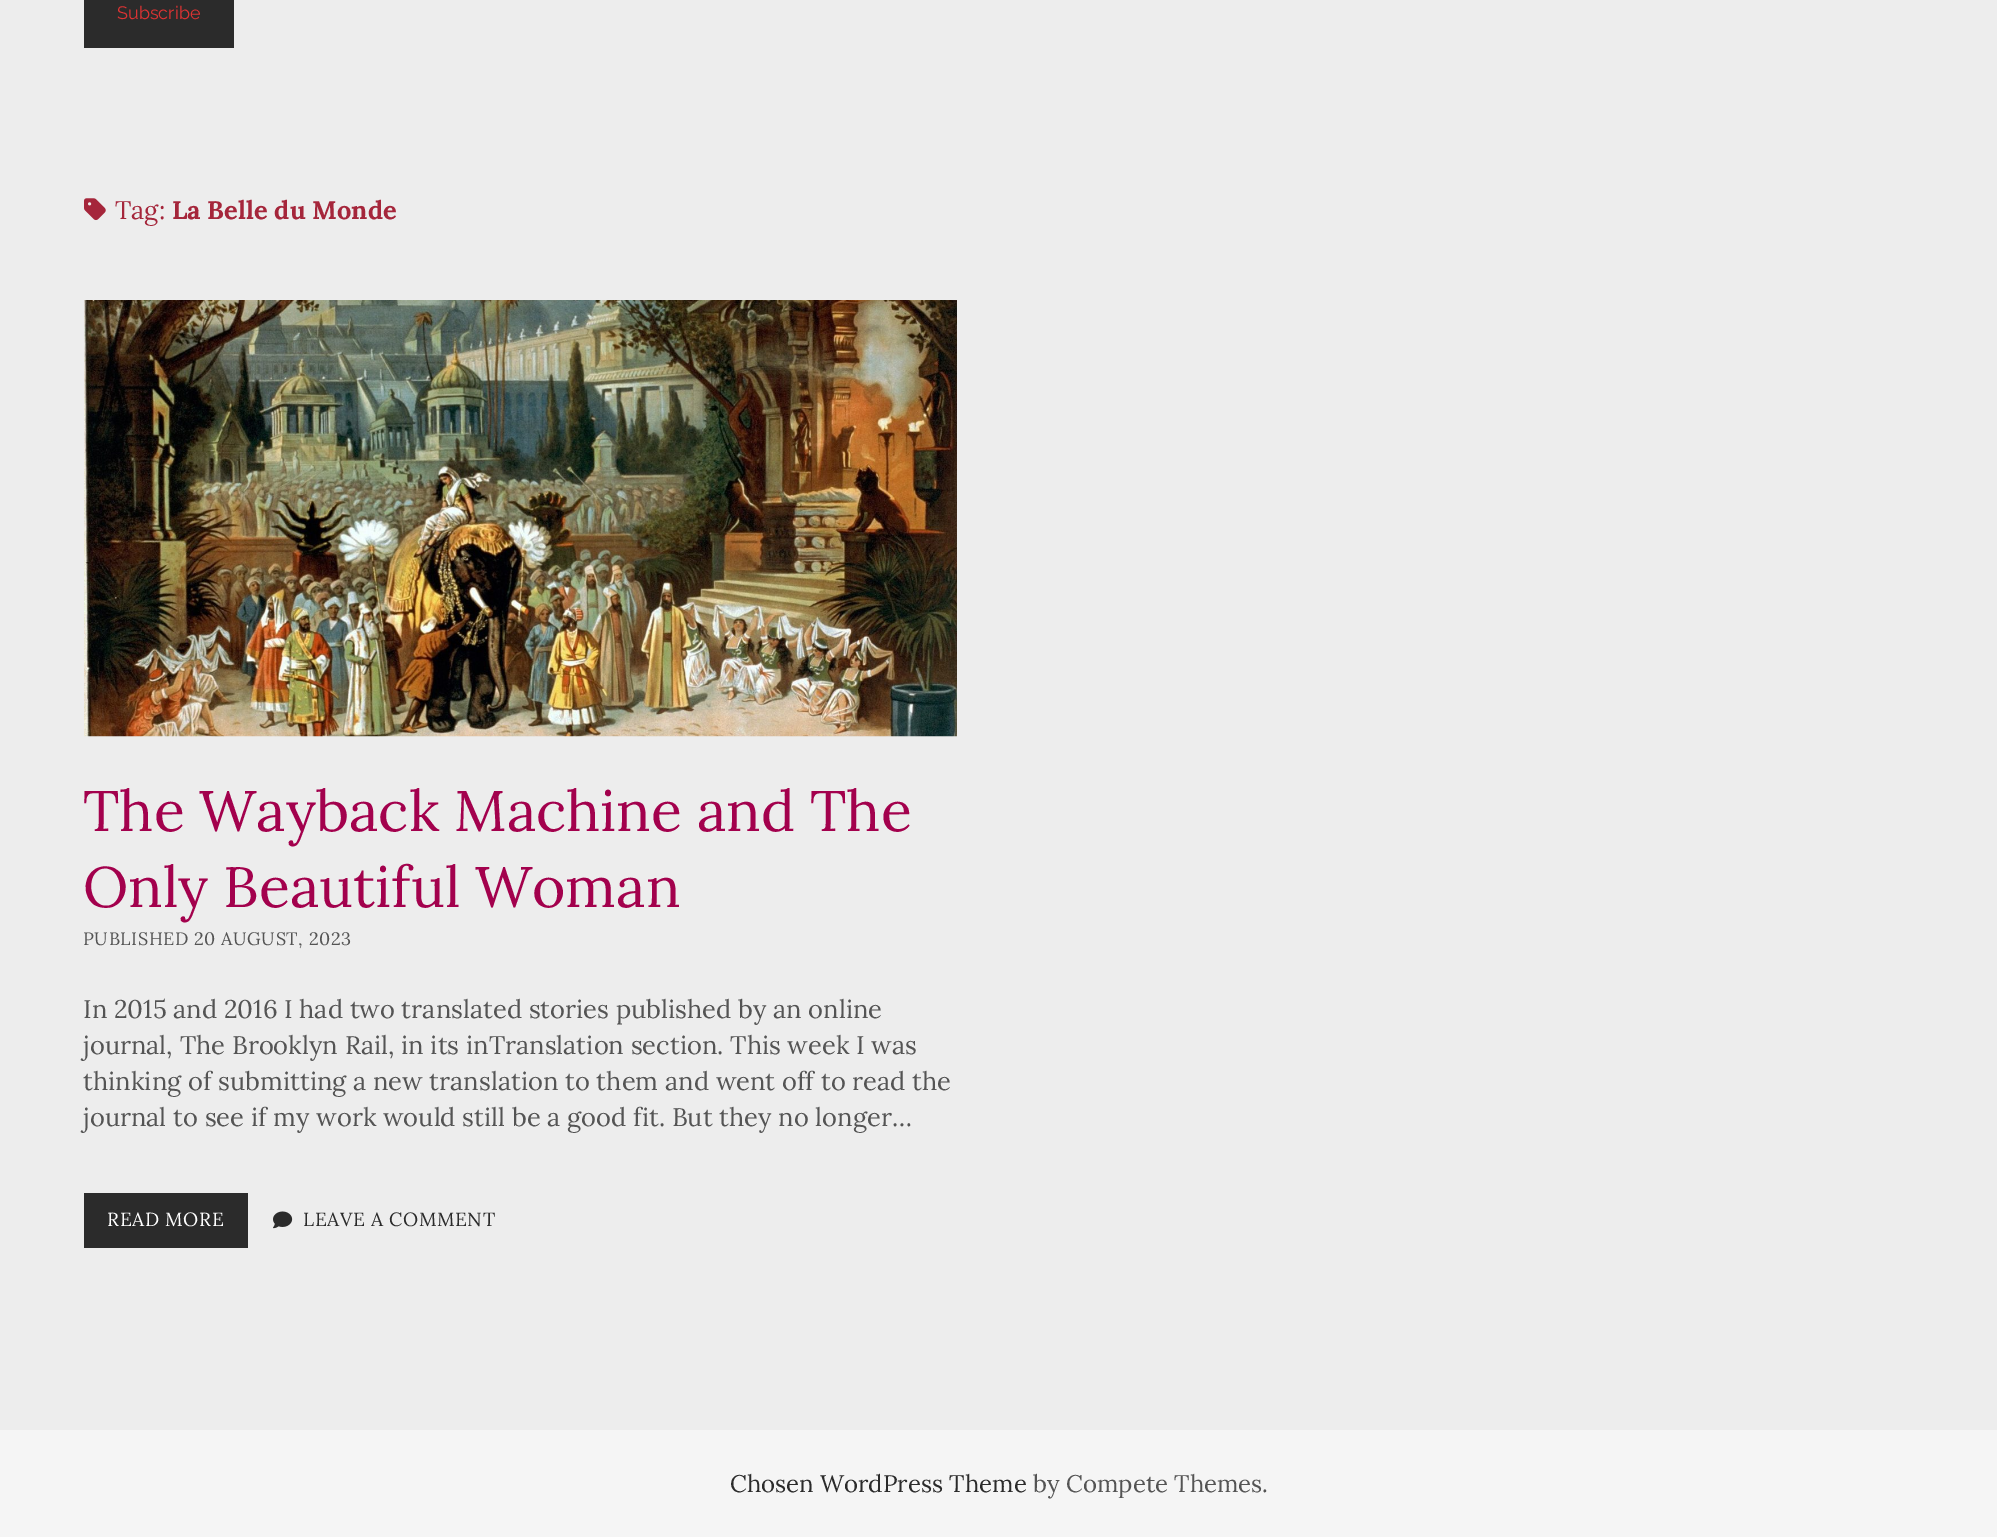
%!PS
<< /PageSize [1997 1537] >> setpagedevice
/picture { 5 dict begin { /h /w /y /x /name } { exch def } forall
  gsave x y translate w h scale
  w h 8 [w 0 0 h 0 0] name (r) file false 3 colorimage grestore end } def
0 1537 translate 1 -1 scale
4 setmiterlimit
0.929 setgray
0 0 1997 1537 rectfill
0.169 setgray
84 0 150 48 rectfill
/Raleway-Regular [18 0 0 -18 0 0] selectfont
0.867 0.2 0.2 setrgbcolor
117 19 moveto (Subscribe) show
(img1.rgb) 84 198 22 23 picture
/Lora-Regular [25.5 0 0 -25.5 0 0] selectfont
0.647 0.149 0.231 setrgbcolor
115 219 moveto (Tag:) show
/Lora-Bold [25.5 0 0 -25.5 0 0] selectfont
172 219 moveto (La Belle du Monde) show
(img2.rgb) 84 300 873 437 picture
/Lora-Regular [57 0 0 -57 0 0] selectfont
0.639 0.004 0.302 setrgbcolor
83 831 moveto (The Wayback Machine and The) show
83 907 moveto (Only Beautiful Woman) show
/Lora-Regular [18 0 0 -18 0 0] selectfont
0.329 setgray
83 945 moveto 0.55 0 (PUBLISHED 20 AUGUST, 2023) ashow
/Lora-Regular [25.5 0 0 -25.5 0 0] selectfont
83 1018 moveto (In 2015 and 2016 I had two translated stories published by an online) show
83 1054 moveto (journal, The Brooklyn Rail, in its inTranslation section. This week I was) show
83 1090 moveto (thinking of submitting a new translation to them and went off to read the) show
83 1126 moveto (journal to see if my work would still be a good fit. But they no longer…) show
0.169 setgray
84 1193 164 55 rectfill
/Lora-Regular [19.1 0 0 -19.1 0 0] selectfont
1 setgray
107 1226 moveto 0.6 0 (READ MORE) ashow
(img3.rgb) 273 1211 20 18 picture
0.169 setgray
303 1226 moveto 0.6 0 (LEAVE A COMMENT) ashow
0.961 setgray
0 1430 1997 107 rectfill
/Lora-Regular [24 0 0 -24 0 0] selectfont
0.169 setgray
730 1492 moveto (Chosen WordPress Theme) show
0.329 setgray
1033 1492 moveto (by Compete Themes.) show
showpage
